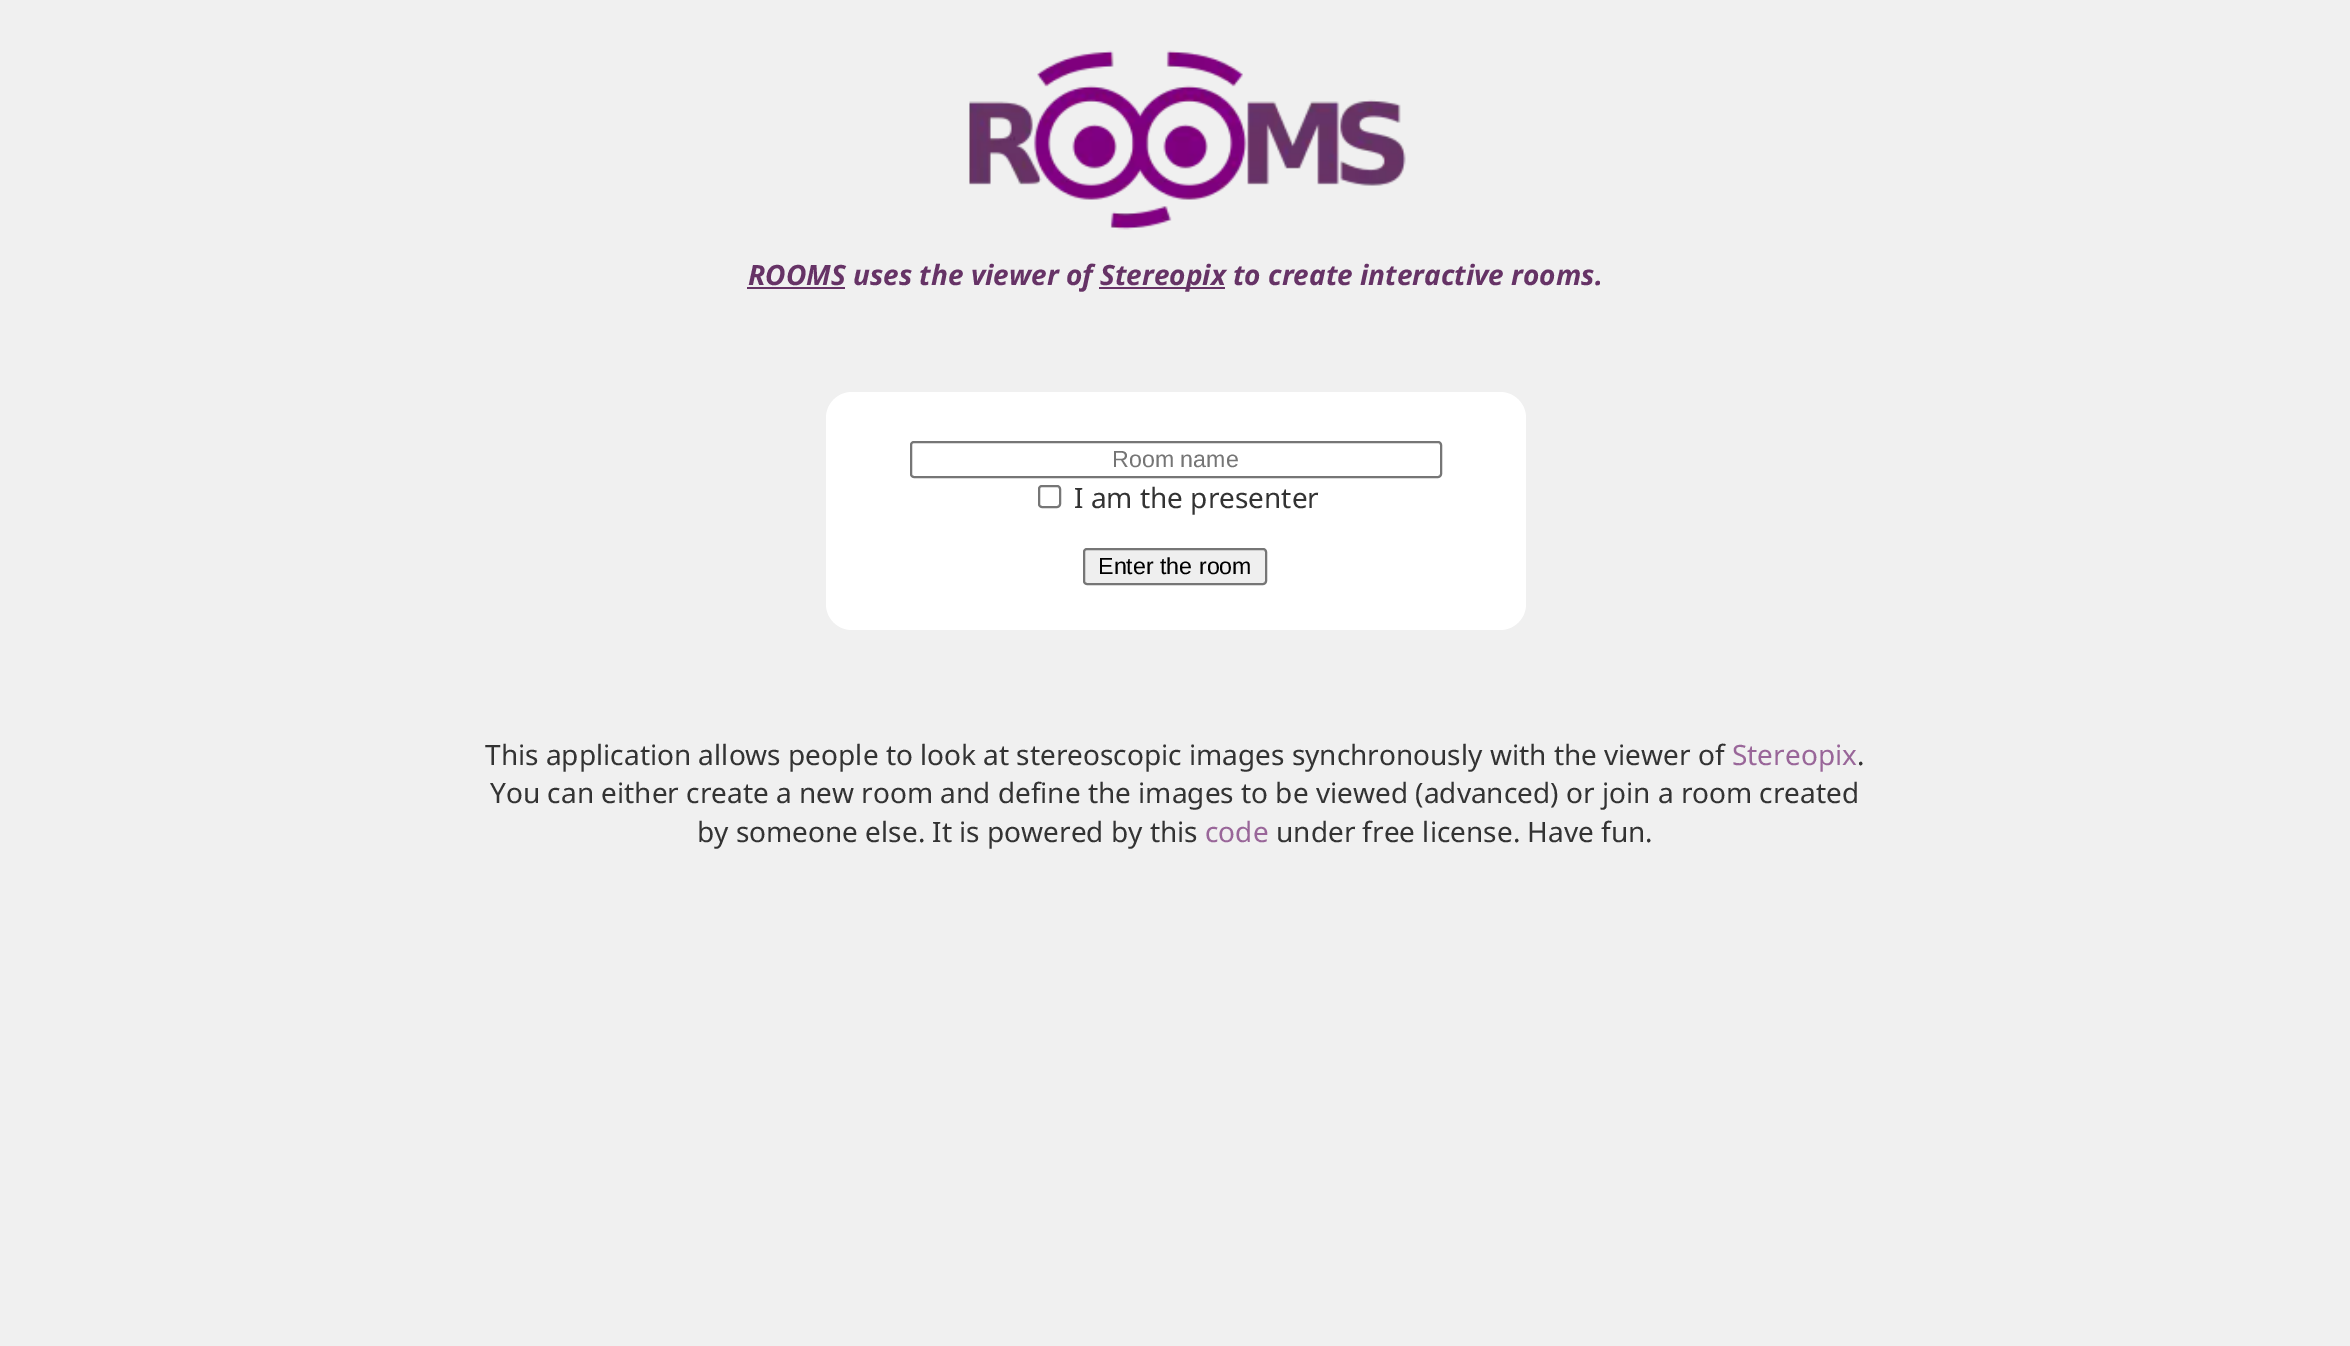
%!PS
<< /PageSize [2350 1346] >> setpagedevice
/roundrect { 5 dict begin { /r /h /w /y /x } { exch def } forall
  x r add y moveto x w add y 2 copy h add r arct x w add y h add x 1 index r arct
  x y h add x y r arct x y 2 copy exch w add exch r arct closepath end } def
/picture { 5 dict begin { /h /w /y /x /name } { exch def } forall
  gsave x y translate w h scale
  w h 8 [w 0 0 h 0 0] name (r) file false 3 colorimage grestore end } def
0 1346 translate 1 -1 scale
4 setmiterlimit
0.941 setgray
0 0 2350 1346 rectfill
(img1.rgb) 969 50 437 180 picture
0.4 0.2 0.4 setrgbcolor
747 287 98 2 rectfill
/NotoSans-BoldItalic [28 0 0 -28 0 0] selectfont
748 285 moveto (ROOMS uses the viewer of) show
1099 287 126 2 rectfill
1100 285 moveto (Stereopix to create interactive rooms.) show
1 setgray
826 392 700 238 26 roundrect fill
0.463 setgray
2 setlinewidth
911 442 530 35 3 roundrect stroke
/LiberationSans-Regular [23.25 0 0 -23.25 0 0] selectfont
0.459 setgray
1112 467 moveto (Room name) show
0.463 setgray
1039 486 21 21 3 roundrect stroke
/NotoSans-Regular [28 0 0 -28 0 0] selectfont
0.2 setgray
1074 508 moveto (I am the presenter) show
0.937 setgray
1084 549 182 35 3 roundrect gsave fill grestore
0.463 setgray
stroke
/LiberationSans-Regular [23.25 0 0 -23.25 0 0] selectfont
0 setgray
1098 574 moveto (Enter the room) show
/NotoSans-Regular [28 0 0 -28 0 0] selectfont
0.2 setgray
485 765 moveto (This application allows people to look at stereoscopic images synchronously with the viewer of) show
0.6 0.4 0.6 setrgbcolor
1732 765 moveto (Stereopix) show
0.2 setgray
1857 765 moveto (.) show
490 803 moveto (You can either create a new room and define the images to be viewed \(advanced\) or join a room created) show
697 842 moveto (by someone else. It is powered by this) show
0.6 0.4 0.6 setrgbcolor
1205 842 moveto (code) show
0.2 setgray
1276 842 moveto (under free license. Have fun.) show
showpage
